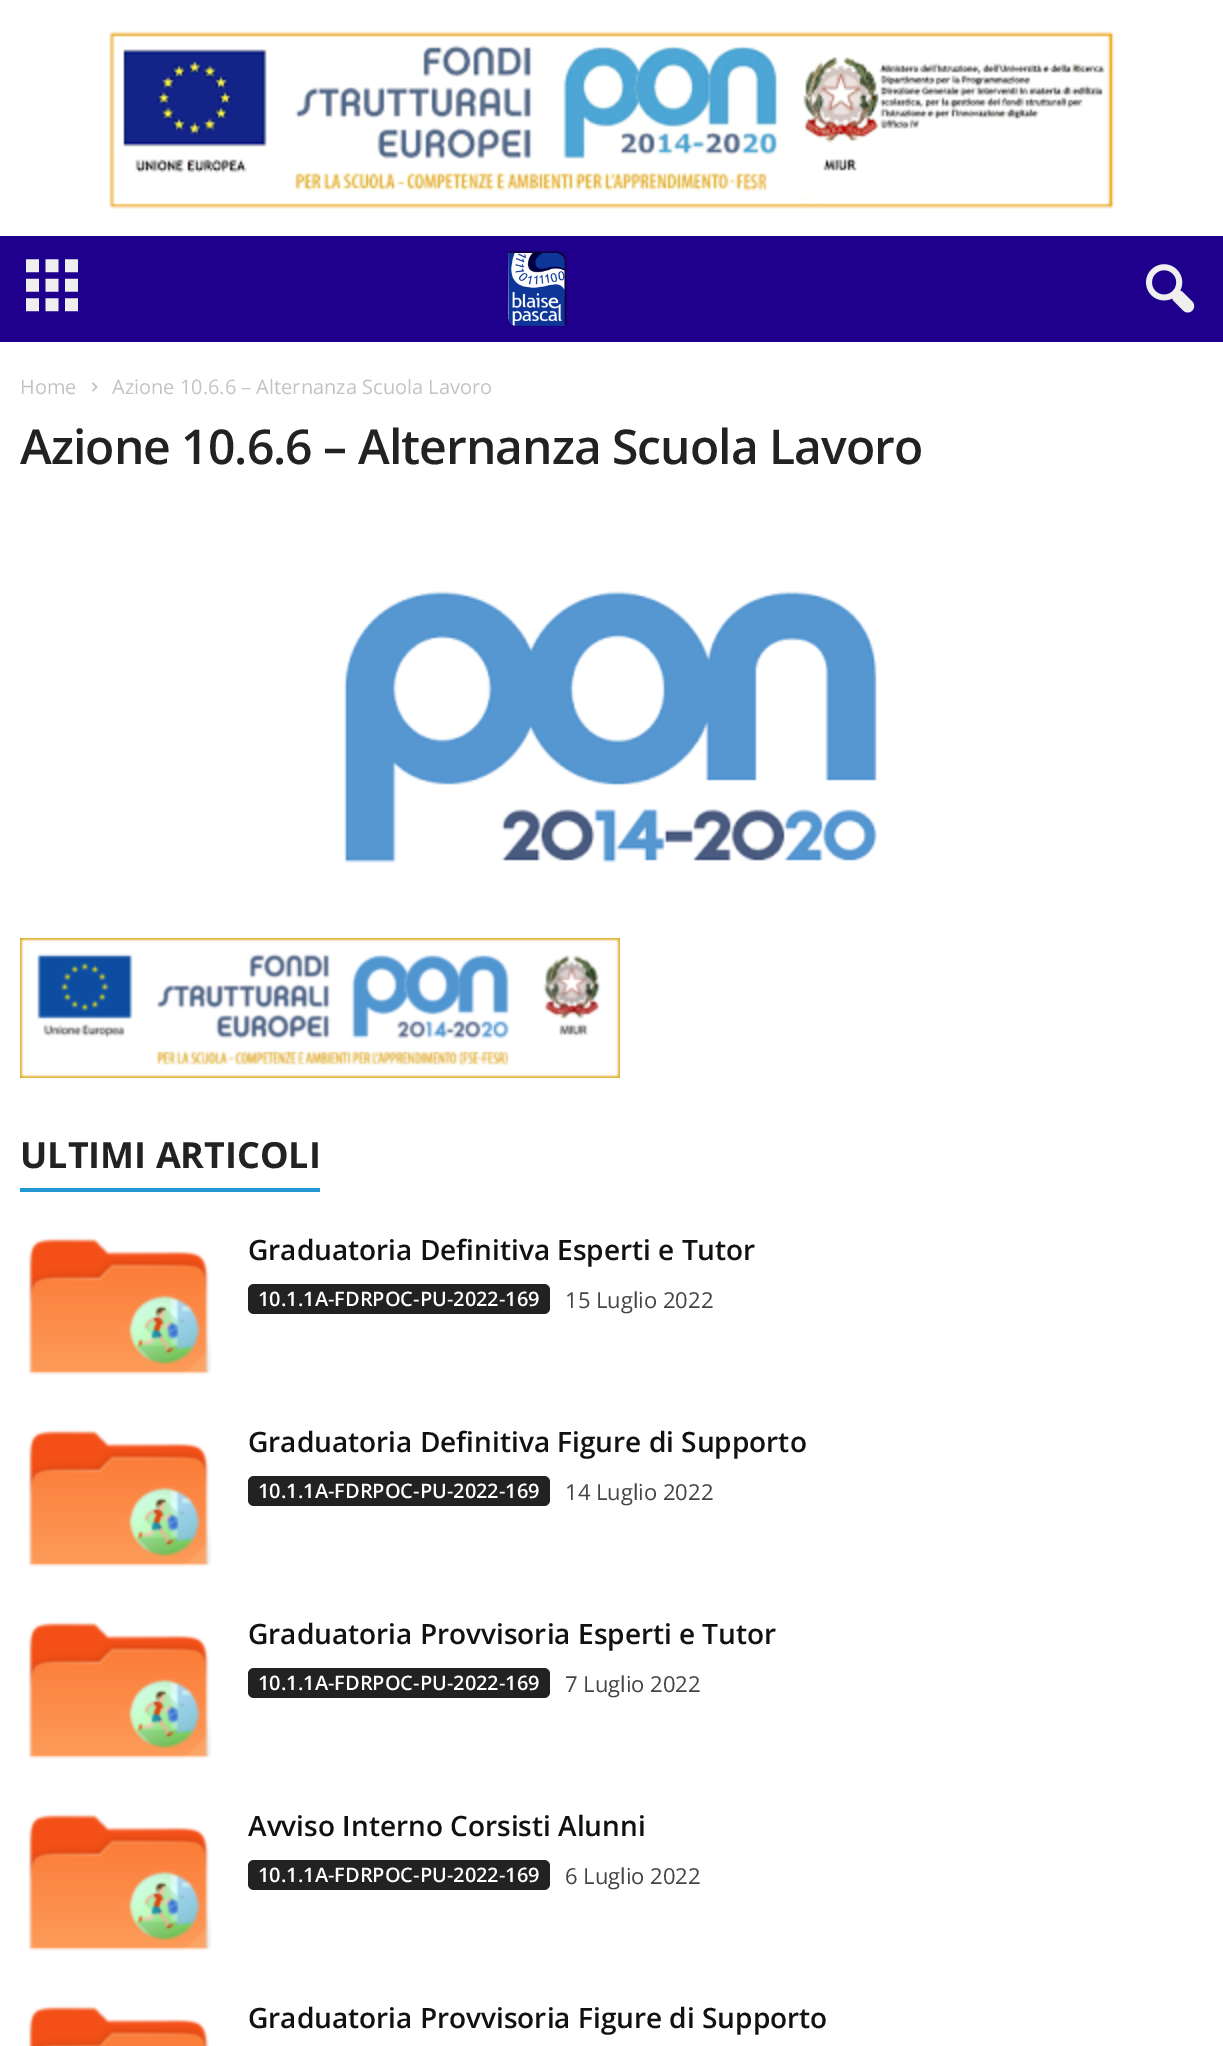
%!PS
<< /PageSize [1223 2046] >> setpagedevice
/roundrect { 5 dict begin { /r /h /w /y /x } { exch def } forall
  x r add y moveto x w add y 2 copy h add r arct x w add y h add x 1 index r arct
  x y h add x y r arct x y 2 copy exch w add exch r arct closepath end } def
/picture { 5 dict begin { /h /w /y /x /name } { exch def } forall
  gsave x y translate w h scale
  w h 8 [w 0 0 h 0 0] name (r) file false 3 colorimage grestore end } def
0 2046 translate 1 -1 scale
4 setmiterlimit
1 setgray
0 0 1223 2046 rectfill
(img1.rgb) 109 31 1006 178 picture
0.122 0 0.549 setrgbcolor
0 236 1223 106 rectfill
(img2.rgb) 26 259 52 53 picture
(img3.rgb) 508 250 59 77 picture
(img4.rgb) 1146 264 49 49 picture
/OpenSans-Regular [20 0 0 -20 0 0] selectfont
0.765 setgray
20 394 moveto (Home) show
(img5.rgb) 92 382 6 10 picture
112 394 moveto (Azione 10.6.6 – Alternanza Scuola Lavoro) show
/OpenSans-SemiBold [48 0 0 -48 0 0] selectfont
0.133 setgray
20 464 moveto -0.95 0 (Azione 10.6.6 – Alternanza Scuola Lavoro) ashow
(img6.rgb) 343 591 534 272 picture
(img7.rgb) 20 938 600 140 picture
/OpenSans-Bold [36 0 0 -36 0 0] selectfont
20 1168 moveto (ULTIMI ARTICOLI) show
0.129 0.596 0.827 setrgbcolor
20 1188 300 4 rectfill
(img8.rgb) 28 1237 184 138 picture
/OpenSans-SemiBold [28 0 0 -28 0 0] selectfont
0.067 setgray
248 1260 moveto (Graduatoria Definitiva Esperti e Tutor) show
0.133 setgray
248 1284 302 30 6 roundrect fill
/OpenSans-SemiBold [20 0 0 -20 0 0] selectfont
1 setgray
258 1306 moveto (10.1.1A-FDRPOC-PU-2022-169) show
/OpenSans-Regular [22 0 0 -22 0 0] selectfont
0.267 setgray
565 1308 moveto (15 Luglio 2022) show
(img8.rgb) 28 1429 184 138 picture
/OpenSans-SemiBold [28 0 0 -28 0 0] selectfont
0.067 setgray
248 1452 moveto (Graduatoria Definitiva Figure di Supporto) show
0.133 setgray
248 1476 302 30 6 roundrect fill
/OpenSans-SemiBold [20 0 0 -20 0 0] selectfont
1 setgray
258 1498 moveto (10.1.1A-FDRPOC-PU-2022-169) show
/OpenSans-Regular [22 0 0 -22 0 0] selectfont
0.267 setgray
565 1500 moveto (14 Luglio 2022) show
(img8.rgb) 28 1621 184 138 picture
/OpenSans-SemiBold [28 0 0 -28 0 0] selectfont
0.067 setgray
248 1644 moveto (Graduatoria Provvisoria Esperti e Tutor) show
0.133 setgray
248 1668 302 30 6 roundrect fill
/OpenSans-SemiBold [20 0 0 -20 0 0] selectfont
1 setgray
258 1690 moveto (10.1.1A-FDRPOC-PU-2022-169) show
/OpenSans-Regular [22 0 0 -22 0 0] selectfont
0.267 setgray
565 1692 moveto (7 Luglio 2022) show
(img8.rgb) 28 1813 184 138 picture
/OpenSans-SemiBold [28 0 0 -28 0 0] selectfont
0.067 setgray
248 1836 moveto (Avviso Interno Corsisti Alunni) show
0.133 setgray
248 1860 302 30 6 roundrect fill
/OpenSans-SemiBold [20 0 0 -20 0 0] selectfont
1 setgray
258 1882 moveto (10.1.1A-FDRPOC-PU-2022-169) show
/OpenSans-Regular [22 0 0 -22 0 0] selectfont
0.267 setgray
565 1884 moveto (6 Luglio 2022) show
(img9.rgb) 28 2005 181 41 picture
/OpenSans-SemiBold [28 0 0 -28 0 0] selectfont
0.067 setgray
248 2028 moveto (Graduatoria Provvisoria Figure di Supporto) show
showpage
